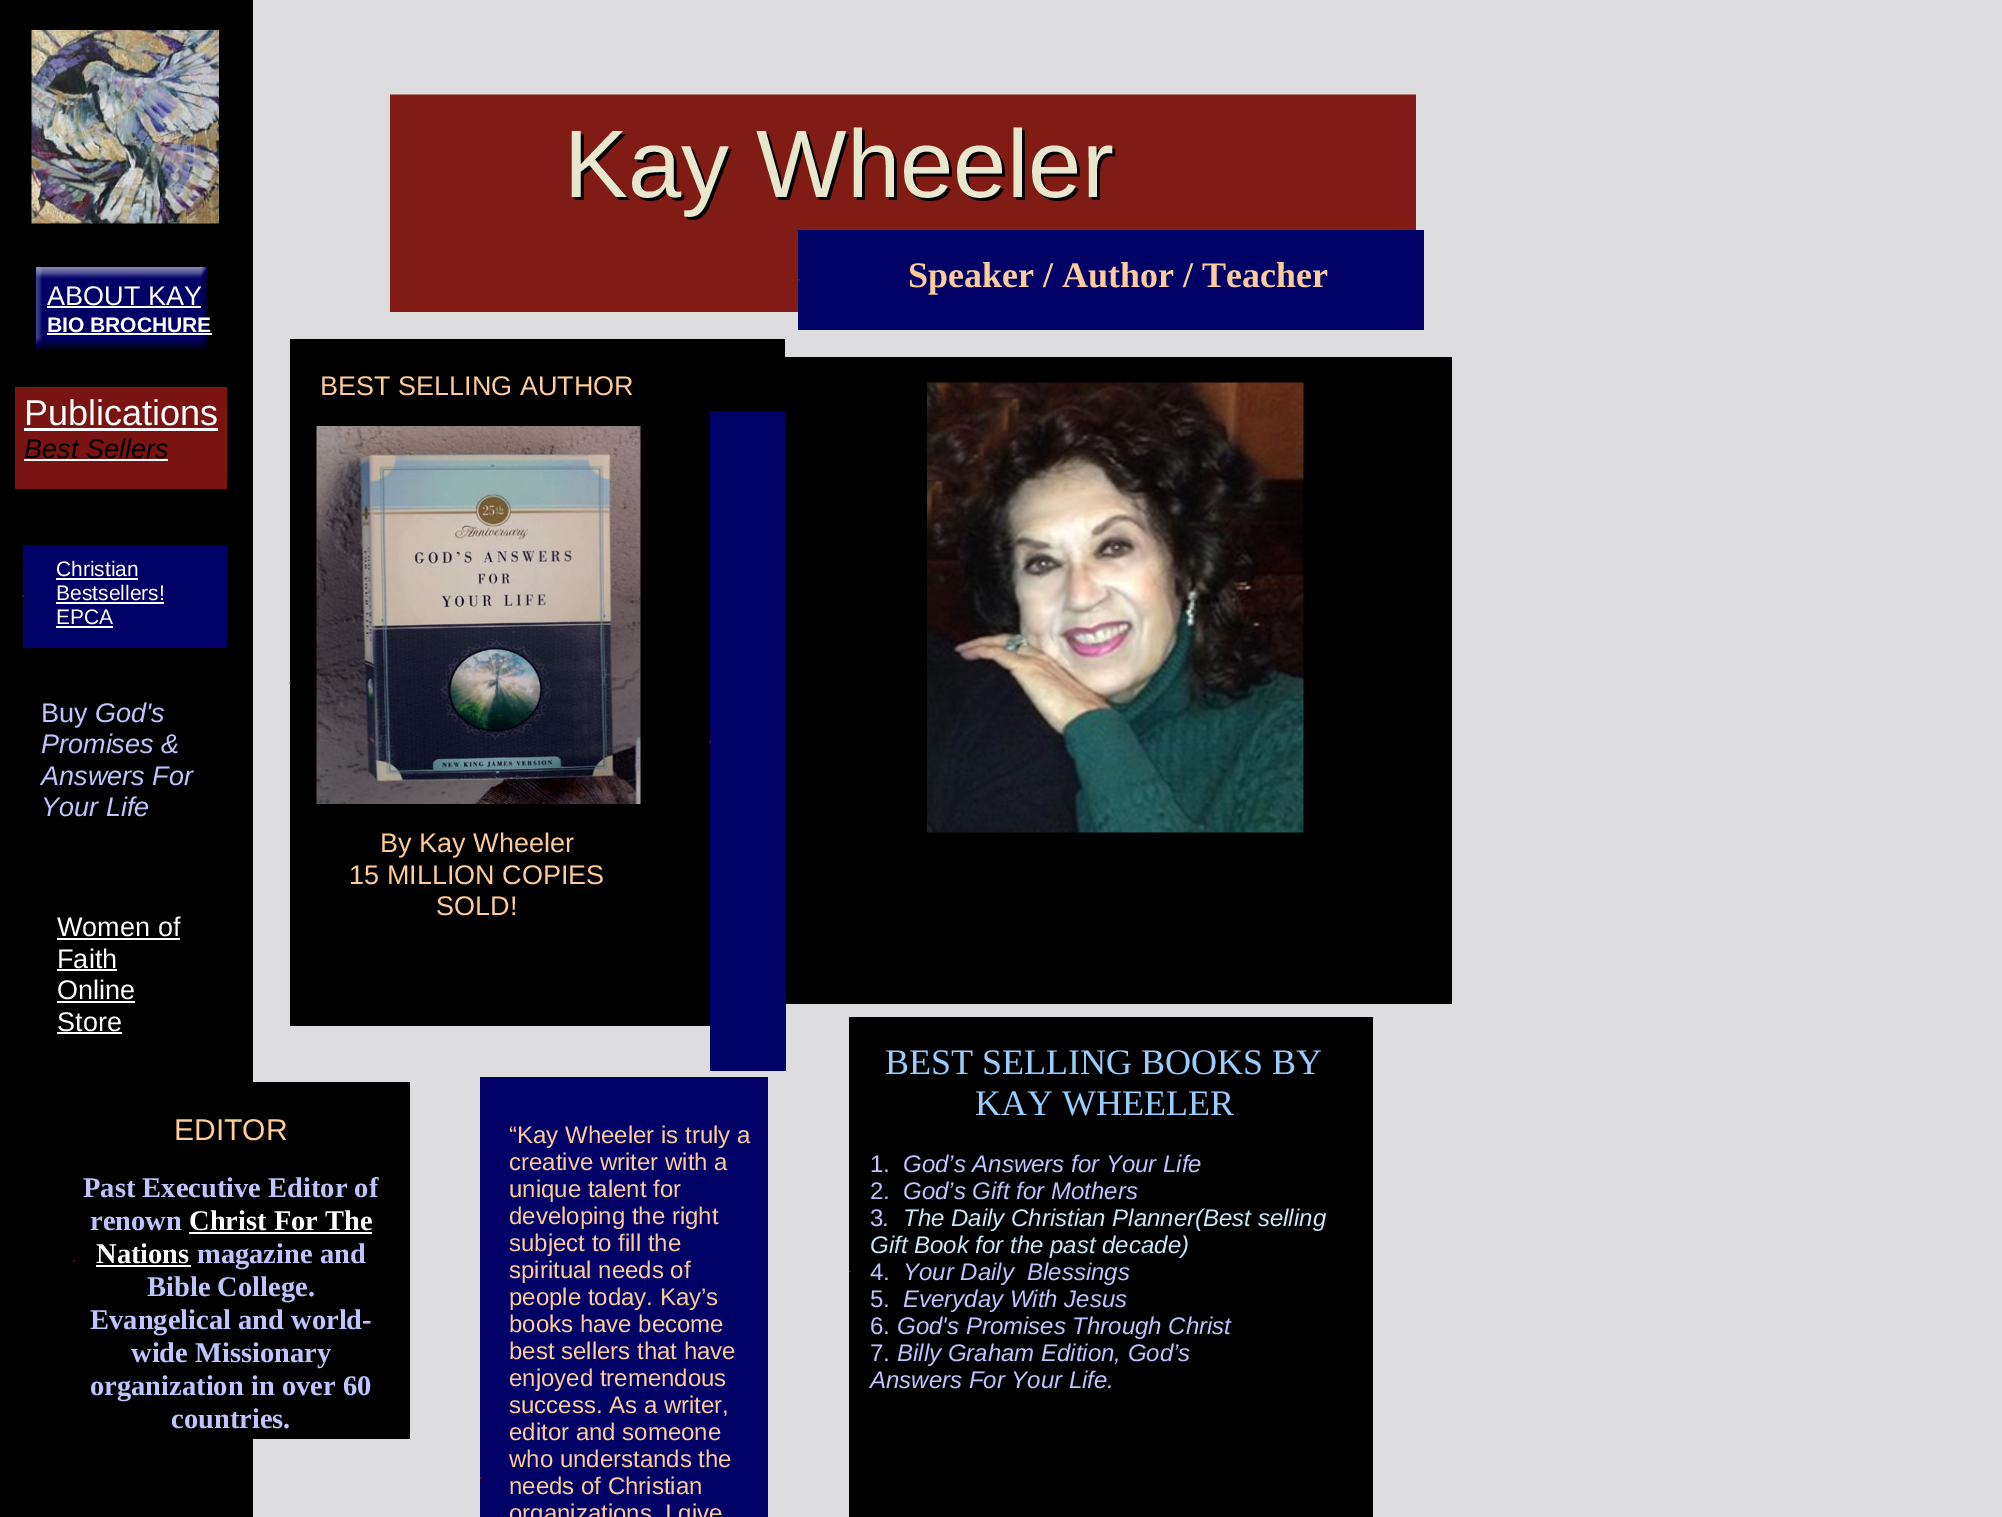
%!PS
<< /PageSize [2002 1517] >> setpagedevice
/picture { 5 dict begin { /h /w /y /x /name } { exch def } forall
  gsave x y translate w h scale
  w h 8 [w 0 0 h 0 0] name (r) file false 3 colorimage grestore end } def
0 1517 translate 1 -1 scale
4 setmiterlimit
0 setgray
0 0 2002 1517 rectfill
0.863 0.863 0.875 setrgbcolor
253 0 1749 1517 rectfill
(img1.rgb) 31 30 188 194 picture
0.502 0.106 0.086 setrgbcolor
390 95 1026 217 rectfill
0.682 0.482 0.482 setrgbcolor
390 94 1026 1 rectfill
/LiberationSans-Regular [96 0 0 -96 0 0] selectfont
0 setgray
567 200 moveto (Kay Wheeler) show
0.91 0.906 0.808 setrgbcolor
564 197 moveto (Kay Wheeler) show
0 0 0.4 setrgbcolor
798 230 626 100 rectfill
(img2.rgb) 798 279 2 2 picture
(img3.rgb) 36 267 171 83 picture
/LiberationSerif-Bold [36 0 0 -36 0 0] selectfont
1 0.8 0.6 setrgbcolor
908 287 moveto (Speaker / Author / Teacher) show
/LiberationSans-Regular [27 0 0 -27 0 0] selectfont
1 setgray
47 305 moveto (ABOUT KAY) show
47 306 154 2 rectfill
/LiberationSans-Regular [21 0 0 -21 0 0] selectfont
0 setgray
201 305 moveto (.) show
/LiberationSans-Bold [21 0 0 -21 0 0] selectfont
1 setgray
47 332 moveto (BIO BROCHURE) show
47 333 165 2 rectfill
0 setgray
290 339 495 687 rectfill
(img4.rgb) 289 682 2 2 picture
785 357 667 647 rectfill
0.478 0.078 0.071 setrgbcolor
15 387 212 102 rectfill
0.502 0.106 0.086 setrgbcolor
15 438 1 1 rectfill
/LiberationSans-Regular [27 0 0 -27 0 0] selectfont
1 0.8 0.6 setrgbcolor
320 395 moveto (BEST SELLING AUTHOR) show
(img5.rgb) 316 426 325 378 picture
380 852 moveto (By Kay Wheeler) show
349 884 moveto (15 MILLION COPIES) show
436 915 moveto (SOLD!) show
(img6.rgb) 927 382 377 451 picture
/LiberationSans-Regular [36 0 0 -36 0 0] selectfont
1 setgray
24 425 moveto (Publications) show
24 428 194 3 rectfill
/LiberationSans-Italic [27 0 0 -27 0 0] selectfont
0 setgray
24 458 moveto (Best Sellers) show
1 setgray
24 459 144 2 rectfill
0 0 0.4 setrgbcolor
710 411 76 660 rectfill
(img7.rgb) 709 741 2 2 picture
23 545 204 103 rectfill
(img8.rgb) 22 595 2 2 picture
/LiberationSans-Regular [21 0 0 -21 0 0] selectfont
1 setgray
56 576 moveto (Christian) show
56 578 82 2 rectfill
56 600 moveto (Bestsellers!) show
56 602 108 2 rectfill
56 624 moveto (EPCA) show
56 626 57 2 rectfill
/LiberationSans-Regular [27 0 0 -27 0 0] selectfont
0.745 0.769 0.992 setrgbcolor
41 722 moveto (Buy) show
/LiberationSans-Italic [27 0 0 -27 0 0] selectfont
95 722 moveto (God's) show
41 753 moveto (Promises &) show
41 785 moveto (Answers For) show
41 816 moveto (Your Life) show
/LiberationSans-Regular [27 0 0 -27 0 0] selectfont
1 setgray
57 936 moveto (Women of) show
57 938 123 2 rectfill
57 968 moveto (Faith) show
57 969 60 2 rectfill
57 999 moveto (Online) show
57 1001 78 2 rectfill
57 1031 moveto (Store) show
57 1032 65 2 rectfill
0 setgray
849 1017 524 500 rectfill
(img9.rgb) 849 1270 2 2 picture
253 1082 157 357 rectfill
(img10.rgb) 73 1260 2 2 picture
0 0 0.4 setrgbcolor
480 1077 288 440 rectfill
(img11.rgb) 480 1477 2 2 picture
/LiberationSerif-Regular [36 0 0 -36 0 0] selectfont
0.6 0.8 1 setrgbcolor
885 1074 moveto (BEST SELLING BOOKS BY) show
975 1115 moveto (KAY WHEELER) show
/LiberationSans-Regular [24 0 0 -24 0 0] selectfont
0.745 0.769 0.992 setrgbcolor
870 1172 moveto (1.) show
/LiberationSans-Italic [24 0 0 -24 0 0] selectfont
903 1172 moveto (God’s Answers for Your Life) show
/LiberationSans-Regular [24 0 0 -24 0 0] selectfont
870 1199 moveto (2.) show
/LiberationSans-Italic [24 0 0 -24 0 0] selectfont
903 1199 moveto (God’s Gift for Mothers) show
/LiberationSans-Regular [24 0 0 -24 0 0] selectfont
870 1226 moveto (3) show
/LiberationSans-Italic [24 0 0 -24 0 0] selectfont
883 1226 moveto (.) show
0.788 0.914 0.98 setrgbcolor
903 1226 moveto (The Daily Christian Planner\(Best selling) show
870 1253 moveto (Gift Book for the past decade\)) show
/LiberationSans-Regular [24 0 0 -24 0 0] selectfont
0.745 0.769 0.992 setrgbcolor
870 1280 moveto (4.) show
/LiberationSans-Italic [24 0 0 -24 0 0] selectfont
903 1280 moveto (Your Daily  Blessings) show
/LiberationSans-Regular [24 0 0 -24 0 0] selectfont
870 1307 moveto (5.) show
/LiberationSans-Italic [24 0 0 -24 0 0] selectfont
903 1307 moveto (Everyday With Jesus) show
/LiberationSans-Regular [24 0 0 -24 0 0] selectfont
870 1334 moveto (6.) show
/LiberationSans-Italic [24 0 0 -24 0 0] selectfont
897 1334 moveto (God's Promises Through Christ) show
/LiberationSans-Regular [24 0 0 -24 0 0] selectfont
870 1361 moveto (7.) show
/LiberationSans-Italic [24 0 0 -24 0 0] selectfont
897 1361 moveto (Billy Graham Edition, God’s) show
870 1388 moveto (Answers For Your Life.) show
/LiberationSans-Regular [30 0 0 -30 0 0] selectfont
1 0.8 0.6 setrgbcolor
174 1140 moveto (EDITOR) show
/LiberationSerif-Bold [28.5 0 0 -28.5 0 0] selectfont
0.745 0.769 0.992 setrgbcolor
83 1197 moveto (Past Executive Editor of) show
90 1230 moveto (renown) show
1 setgray
189 1230 moveto (Christ For The) show
189 1232 183 2 rectfill
96 1263 moveto (Nations) show
96 1265 95 2 rectfill
0.745 0.769 0.992 setrgbcolor
197 1263 moveto (magazine and) show
147 1296 moveto (Bible College.) show
90 1329 moveto (Evangelical and world-) show
131 1362 moveto (wide Missionary) show
90 1395 moveto (organization in over 60) show
171 1428 moveto (countries.) show
/LiberationSans-Regular [24 0 0 -24 0 0] selectfont
1 0.8 0.6 setrgbcolor
509 1143 moveto (“Kay Wheeler is truly a) show
509 1170 moveto (creative writer with a) show
509 1197 moveto (unique talent for) show
509 1224 moveto (developing the right) show
509 1251 moveto (subject to fill the) show
509 1278 moveto (spiritual needs of) show
509 1305 moveto (people today. Kay’s) show
509 1332 moveto (books have become) show
509 1359 moveto (best sellers that have) show
509 1386 moveto (enjoyed tremendous) show
509 1413 moveto (success. As a writer,) show
509 1440 moveto (editor and someone) show
509 1467 moveto (who understands the) show
509 1494 moveto (needs of Christian) show
509 1521 moveto (organizations) show
665 1521 moveto (I give) show
showpage
